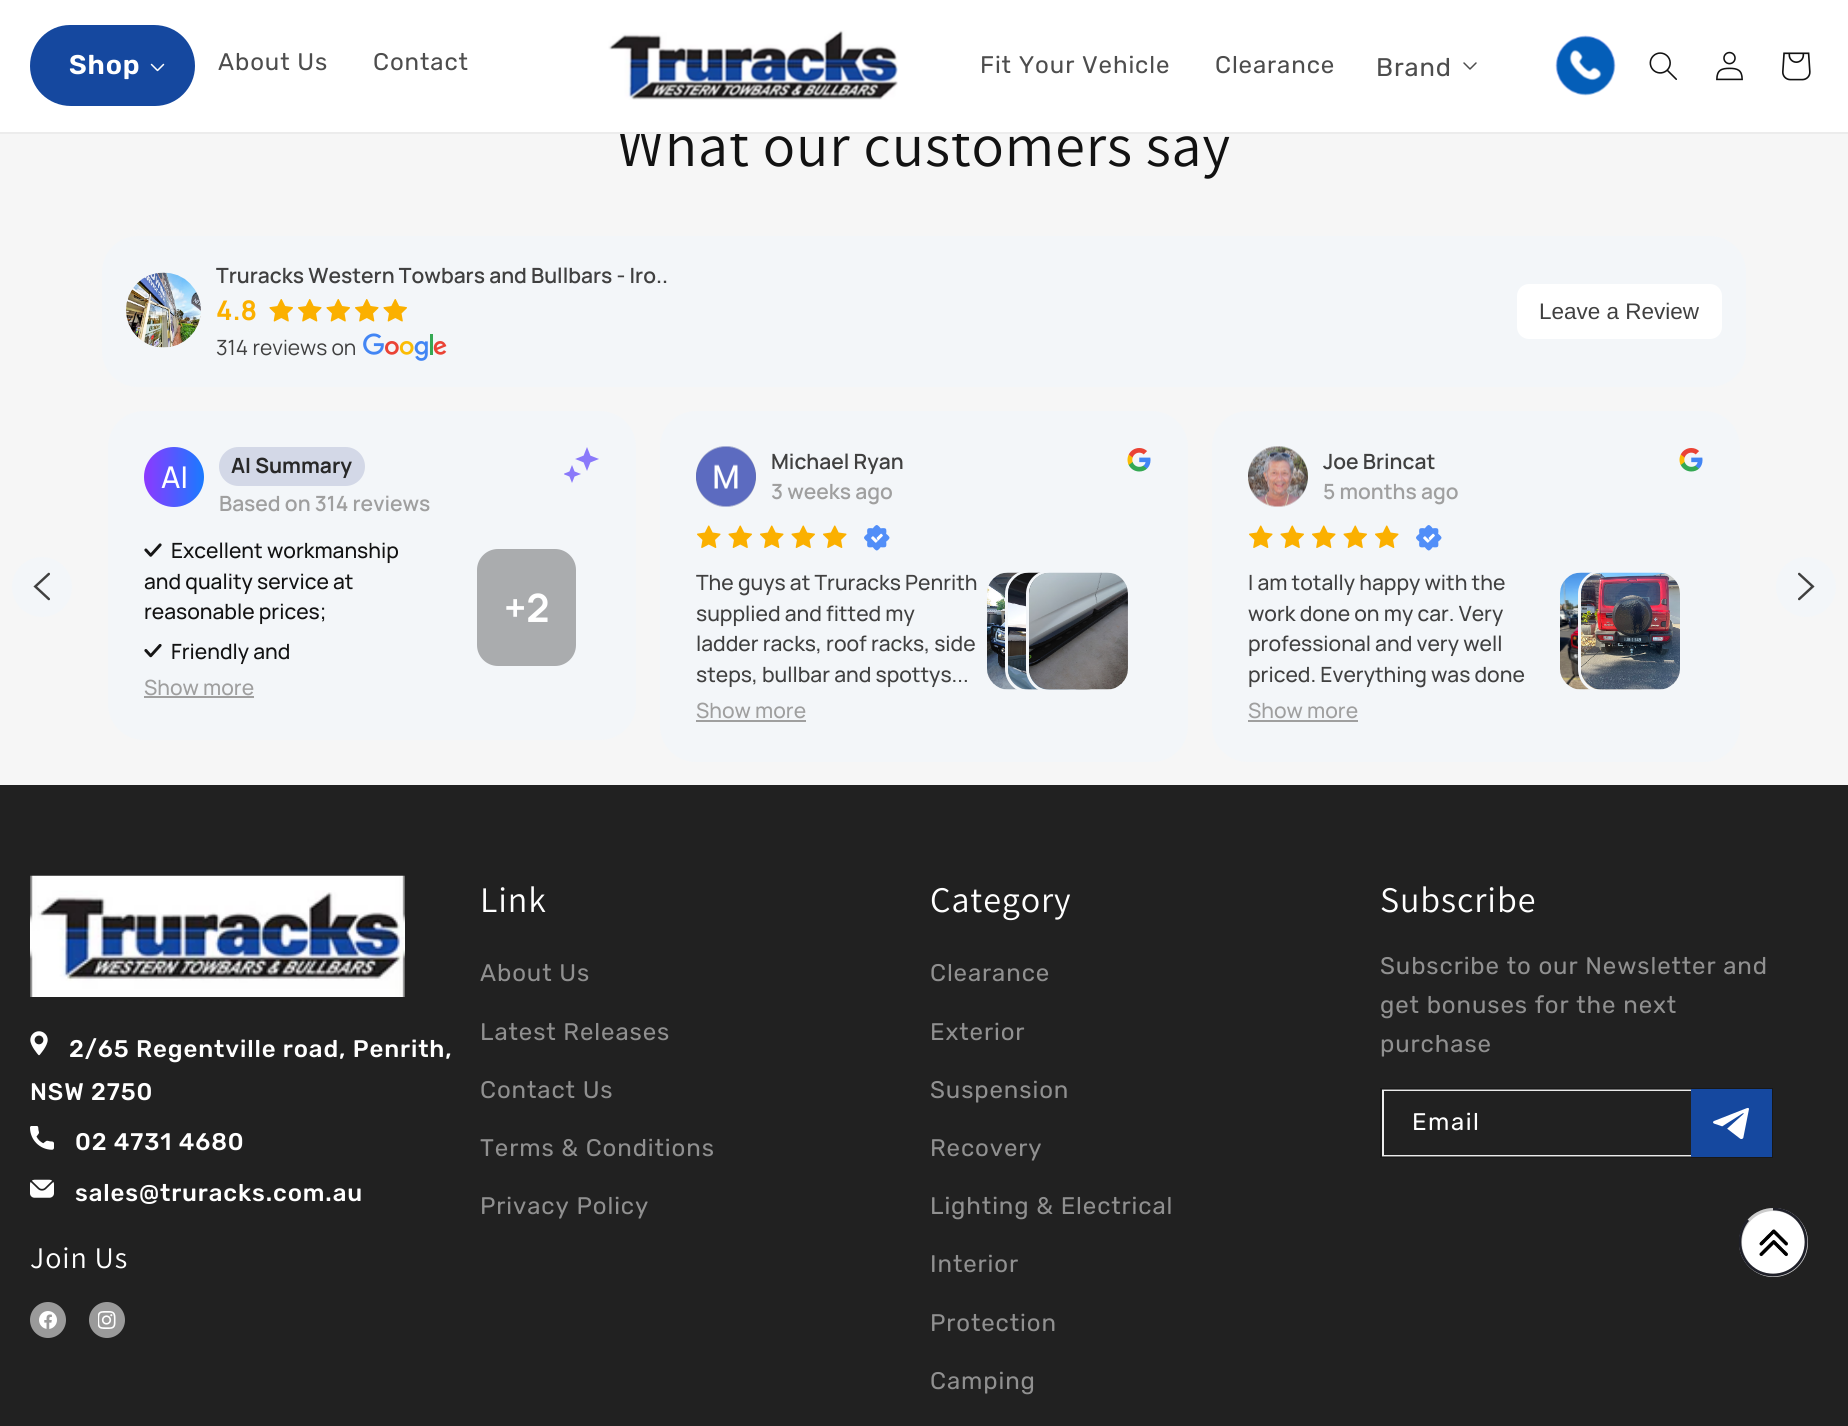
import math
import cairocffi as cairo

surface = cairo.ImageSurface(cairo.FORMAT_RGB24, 1848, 1426)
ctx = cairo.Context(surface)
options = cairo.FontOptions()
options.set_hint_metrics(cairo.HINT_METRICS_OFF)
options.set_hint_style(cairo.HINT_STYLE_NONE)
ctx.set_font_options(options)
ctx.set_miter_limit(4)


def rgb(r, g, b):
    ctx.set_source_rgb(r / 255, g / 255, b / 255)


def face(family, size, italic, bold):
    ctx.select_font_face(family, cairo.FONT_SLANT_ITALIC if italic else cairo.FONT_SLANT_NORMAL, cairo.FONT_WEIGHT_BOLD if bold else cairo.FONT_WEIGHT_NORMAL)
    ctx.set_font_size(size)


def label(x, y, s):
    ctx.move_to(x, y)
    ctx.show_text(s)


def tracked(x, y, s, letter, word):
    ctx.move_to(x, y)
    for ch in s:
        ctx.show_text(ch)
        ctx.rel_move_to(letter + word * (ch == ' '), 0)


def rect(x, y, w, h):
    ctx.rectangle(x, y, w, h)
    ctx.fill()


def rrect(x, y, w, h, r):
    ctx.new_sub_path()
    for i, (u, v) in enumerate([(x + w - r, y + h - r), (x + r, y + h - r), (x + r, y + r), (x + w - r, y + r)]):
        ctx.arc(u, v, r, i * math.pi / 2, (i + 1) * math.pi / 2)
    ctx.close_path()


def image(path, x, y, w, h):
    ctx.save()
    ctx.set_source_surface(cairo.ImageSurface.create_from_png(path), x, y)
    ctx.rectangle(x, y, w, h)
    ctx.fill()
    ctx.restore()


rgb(246, 246, 246)
ctx.paint()
face('Assistant', 60, 0, 0)
rgb(18, 18, 18)
tracked(617, 166, 'What our customers say', 0.9, 0)
rgb(255, 255, 255)
rect(0, 0, 1848, 132)
rgb(236, 236, 236)
rect(0, 132, 1848, 2)
rgb(21, 72, 159)
ctx.new_path()
ctx.move_to(70, 25)
ctx.line_to(154, 25)
ctx.curve_to(177, 25, 195, 43, 195, 66)
ctx.curve_to(195, 88, 177, 106, 155, 106)
ctx.line_to(71, 106)
ctx.curve_to(48, 106, 30, 88, 30, 66)
ctx.curve_to(30, 43, 48, 25, 70, 25)
ctx.close_path()
ctx.fill()
face('Rubik SemiBold', 27, 0, 0)
rgb(255, 255, 255)
tracked(69, 74, 'Shop', 0.9, 0)
image('image0.png', 150, 63, 15, 9)
face('Rubik', 24, 0, 0)
rgb(77, 77, 77)
tracked(218, 70, 'About Us', 0.9, 0)
tracked(373, 70, 'Contact', 0.9, 0)
image('image1.png', 608, 30, 290, 70)
tracked(980, 73, 'Fit Your Vehicle', 0.9, 0)
tracked(1215, 73, 'Clearance', 0.9, 0)
face('Rubik', 25.5, 0, 0)
tracked(1376, 76, 'Brand', 0.9, 0)
image('image2.png', 1463, 62, 14, 8)
image('image3.png', 1555, 35, 61, 61)
image('image4.png', 1649, 52, 28, 28)
image('image5.png', 1716, 51, 27, 30)
image('image6.png', 1782, 52, 29, 29)
rgb(243, 246, 249)
rrect(102, 236, 1644, 151, 36)
ctx.fill()
image('image7.png', 126, 272, 75, 76)
face('Manrope SemiBold', 21, 0, 0)
rgb(64, 64, 64)
label(216, 283, 'Truracks Western Towbars and Bullbars - Iro..')
face('Manrope', 27, 0, 1)
rgb(251, 176, 0)
label(216, 320, '4.8')
image('image8.png', 269, 299, 24, 23)
image('image9.png', 298, 299, 24, 23)
image('image8.png', 326, 299, 24, 23)
image('image9.png', 355, 299, 24, 23)
image('image8.png', 383, 299, 24, 23)
face('Manrope', 21, 0, 0)
rgb(64, 64, 64)
label(216, 355, '314 reviews on')
image('image10.png', 363, 333, 84, 28)
rgb(255, 255, 255)
rrect(1517, 284, 205, 55, 12)
ctx.fill()
face('Liberation Sans', 22.5, 0, 0)
rgb(64, 64, 64)
label(1539, 319, 'Leave a Review')
rgb(243, 246, 249)
ctx.new_path()
ctx.arc(42, 587, 30, 0, 2 * math.pi)
ctx.fill()
image('image11.png', 33, 572, 17, 29)
rrect(108, 411, 528, 329, 36)
ctx.fill()
gradient = cairo.LinearGradient(144, 477, 204, 477)
gradient.add_color_stop_rgba(0, 0.553, 0.22, 1, 1)
gradient.add_color_stop_rgba(1, 0.098, 0.482, 1, 1)
ctx.set_source(gradient)
ctx.arc(174, 477, 30, 0, 2 * math.pi)
ctx.fill()
face('Manrope Medium', 30, 0, 0)
rgb(255, 255, 255)
label(161, 488, 'AI')
rgb(211, 216, 231)
rrect(219, 447, 146, 39, 19.5)
ctx.fill()
face('Manrope', 21, 0, 1)
rgb(40, 40, 40)
label(231, 473, 'AI Summary')
face('Manrope SemiBold', 21, 0, 0)
rgb(159, 159, 159)
label(219, 511, 'Based on 314 reviews')
image('image12.png', 564, 447, 35, 36)
image('image13.png', 144, 543, 18, 14)
face('Manrope Medium', 21, 0, 0)
rgb(18, 18, 18)
label(171, 558, 'Excellent workmanship')
label(144, 589, 'and quality service at')
label(144, 619, 'reasonable prices;')
image('image14.png', 144, 644, 18, 14)
label(171, 659, 'Friendly and')
rgb(170, 172, 174)
rrect(477, 549, 99, 117, 21)
ctx.fill()
face('Manrope', 39, 0, 1)
rgb(255, 255, 255)
label(504, 622, '+2')
face('Manrope Medium', 21, 0, 0)
rgb(159, 159, 159)
label(144, 695, 'Show more')
rect(144, 696, 110, 2)
rgb(243, 246, 249)
rrect(660, 411, 528, 351, 36)
ctx.fill()
image('image15.png', 696, 446, 60, 61)
face('Manrope SemiBold', 21, 0, 0)
rgb(64, 64, 64)
label(771, 469, 'Michael Ryan')
rgb(159, 159, 159)
label(771, 499, '3 weeks ago')
image('image16.png', 1127, 448, 24, 24)
image('image17.png', 697, 525, 24, 23)
image('image18.png', 728, 525, 24, 23)
image('image17.png', 760, 525, 24, 23)
image('image18.png', 791, 525, 24, 23)
image('image17.png', 823, 525, 24, 23)
image('image19.png', 864, 525, 26, 26)
face('Manrope Medium', 21, 0, 0)
rgb(64, 64, 64)
label(696, 590, 'The guys at Truracks Penrith')
label(696, 621, 'supplied and fitted my')
label(696, 651, 'ladder racks, roof racks, side')
label(696, 682, 'steps, bullbar and spottys...')
image('image22.png', 987, 572, 83, 118)
rrect(1006.5, 571.5, 102, 120, 22.5)
rgb(243, 246, 249)
ctx.set_line_width(3)
ctx.stroke()
image('image20.png', 1008, 572, 83, 118)
rrect(1027.5, 571.5, 102, 120, 22.5)
ctx.stroke()
image('image21.png', 1029, 572, 99, 118)
rgb(159, 159, 159)
label(696, 718, 'Show more')
rect(696, 720, 110, 2)
rgb(243, 246, 249)
rrect(1212, 411, 528, 351, 36)
ctx.fill()
image('image23.png', 1248, 446, 60, 61)
face('Manrope SemiBold', 21, 0, 0)
rgb(64, 64, 64)
label(1323, 469, 'Joe Brincat')
rgb(159, 159, 159)
label(1323, 499, '5 months ago')
image('image16.png', 1679, 448, 24, 24)
image('image17.png', 1249, 525, 24, 23)
image('image18.png', 1280, 525, 24, 23)
image('image17.png', 1312, 525, 24, 23)
image('image18.png', 1343, 525, 24, 23)
image('image17.png', 1375, 525, 24, 23)
image('image19.png', 1416, 525, 26, 26)
face('Manrope Medium', 21, 0, 0)
rgb(64, 64, 64)
label(1248, 590, 'I am totally happy with the')
label(1248, 621, 'work done on my car. Very')
label(1248, 651, 'professional and very well')
label(1248, 682, 'priced. Everything was done')
image('image25.png', 1560, 572, 83, 118)
rrect(1579.5, 571.5, 102, 120, 22.5)
rgb(243, 246, 249)
ctx.stroke()
image('image24.png', 1581, 572, 99, 118)
rgb(159, 159, 159)
label(1248, 718, 'Show more')
rect(1248, 720, 110, 2)
rgb(243, 246, 249)
ctx.new_path()
ctx.arc(1806, 587, 30, 0, 2 * math.pi)
ctx.fill()
image('image26.png', 1798, 572, 17, 29)
rgb(33, 33, 33)
rect(0, 785, 1848, 641)
image('image27.png', 30, 875, 375, 122)
image('image28.png', 30, 1031, 18, 25)
face('Rubik Medium', 24, 0, 0)
rgb(255, 255, 255)
tracked(69, 1057, '2/65 Regentville road, Penrith,', 0.9, 0)
tracked(30, 1100, 'NSW 2750', 0.9, 0)
image('image29.png', 30, 1126, 24, 24)
tracked(75, 1150, '02 4731 4680', 0.9, 0)
image('image30.png', 30, 1179, 24, 19)
tracked(75, 1201, 'sales@truracks.com.au', 0.9, 0)
face('Assistant', 30, 0, 0)
tracked(30, 1268, 'Join Us', 0.9, 0)
rgb(154, 154, 154)
ctx.new_path()
ctx.arc(48, 1320, 18, 0, 2 * math.pi)
ctx.fill()
image('image31.png', 39, 1311, 18, 18)
ctx.arc(107, 1320, 18, 0, 2 * math.pi)
ctx.fill()
image('image32.png', 98, 1311, 18, 18)
face('Assistant', 36, 0, 0)
rgb(255, 255, 255)
tracked(480, 912, 'Link', 0.9, 0)
face('Rubik', 24, 0, 0)
rgb(144, 144, 144)
tracked(480, 981, 'About Us', 0.9, 0)
tracked(480, 1040, 'Latest Releases', 0.9, 0)
tracked(480, 1098, 'Contact Us', 0.9, 0)
tracked(480, 1156, 'Terms & Conditions', 0.9, 0)
tracked(480, 1214, 'Privacy Policy', 0.9, 0)
face('Assistant', 36, 0, 0)
rgb(255, 255, 255)
tracked(930, 912, 'Category', 0.9, 0)
face('Rubik', 24, 0, 0)
rgb(144, 144, 144)
tracked(930, 981, 'Clearance', 0.9, 0)
tracked(930, 1040, 'Exterior', 0.9, 0)
tracked(930, 1098, 'Suspension', 0.9, 0)
tracked(930, 1156, 'Recovery', 0.9, 0)
tracked(930, 1214, 'Lighting & Electrical', 0.9, 0)
tracked(930, 1272, 'Interior', 0.9, 0)
tracked(930, 1331, 'Protection', 0.9, 0)
tracked(930, 1389, 'Camping', 0.9, 0)
face('Assistant', 36, 0, 0)
rgb(255, 255, 255)
tracked(1380, 912, 'Subscribe', 0.9, 0)
face('Rubik', 24, 0, 0)
rgb(144, 144, 144)
tracked(1380, 974, 'Subscribe to our Newsletter and', 0.9, 0)
tracked(1380, 1013, 'get bonuses for the next', 0.9, 0)
tracked(1380, 1052, 'purchase', 0.9, 0)
rgb(235, 235, 235)
rect(1382, 1089, 309, 2)
rect(1382, 1155, 309, 2)
rect(1382, 1089, 2, 68)
ctx.rectangle(1381, 1089, 391, 68)
ctx.set_source_rgba(0.071, 0.071, 0.071, 0.55)
ctx.set_line_width(2)
ctx.stroke()
rgb(21, 72, 159)
rect(1691, 1089, 81, 68)
image('image33.png', 1713, 1107, 36, 32)
rgb(255, 255, 255)
tracked(1412, 1130, 'Email', 1.5, 0)
ctx.new_path()
ctx.arc(1773.5, 1242.5, 34.5, 0, 2 * math.pi)
ctx.fill()
ctx.arc(1773.5, 1242.5, 33, 0, 2 * math.pi)
ctx.set_source_rgba(0, 0, 0, 0.2)
ctx.set_line_width(3)
ctx.stroke()
image('image34.png', 1759, 1229, 29, 28)
ctx.save()
ctx.rectangle(1739, 1208, 69, 69)
ctx.clip()
ctx.new_path()
ctx.move_to(1773, 1209)
ctx.curve_to(1791.5, 1209, 1806, 1223.5, 1806, 1242)
ctx.curve_to(1806, 1260.5, 1791.5, 1275, 1773, 1275)
ctx.curve_to(1754.5, 1275, 1740, 1260.5, 1740, 1242)
ctx.curve_to(1740, 1233.5, 1743, 1226, 1748, 1220)
rgb(31, 32, 41)
ctx.set_line_width(2.7)
ctx.stroke()
ctx.restore()
surface.write_to_png('render.png')
